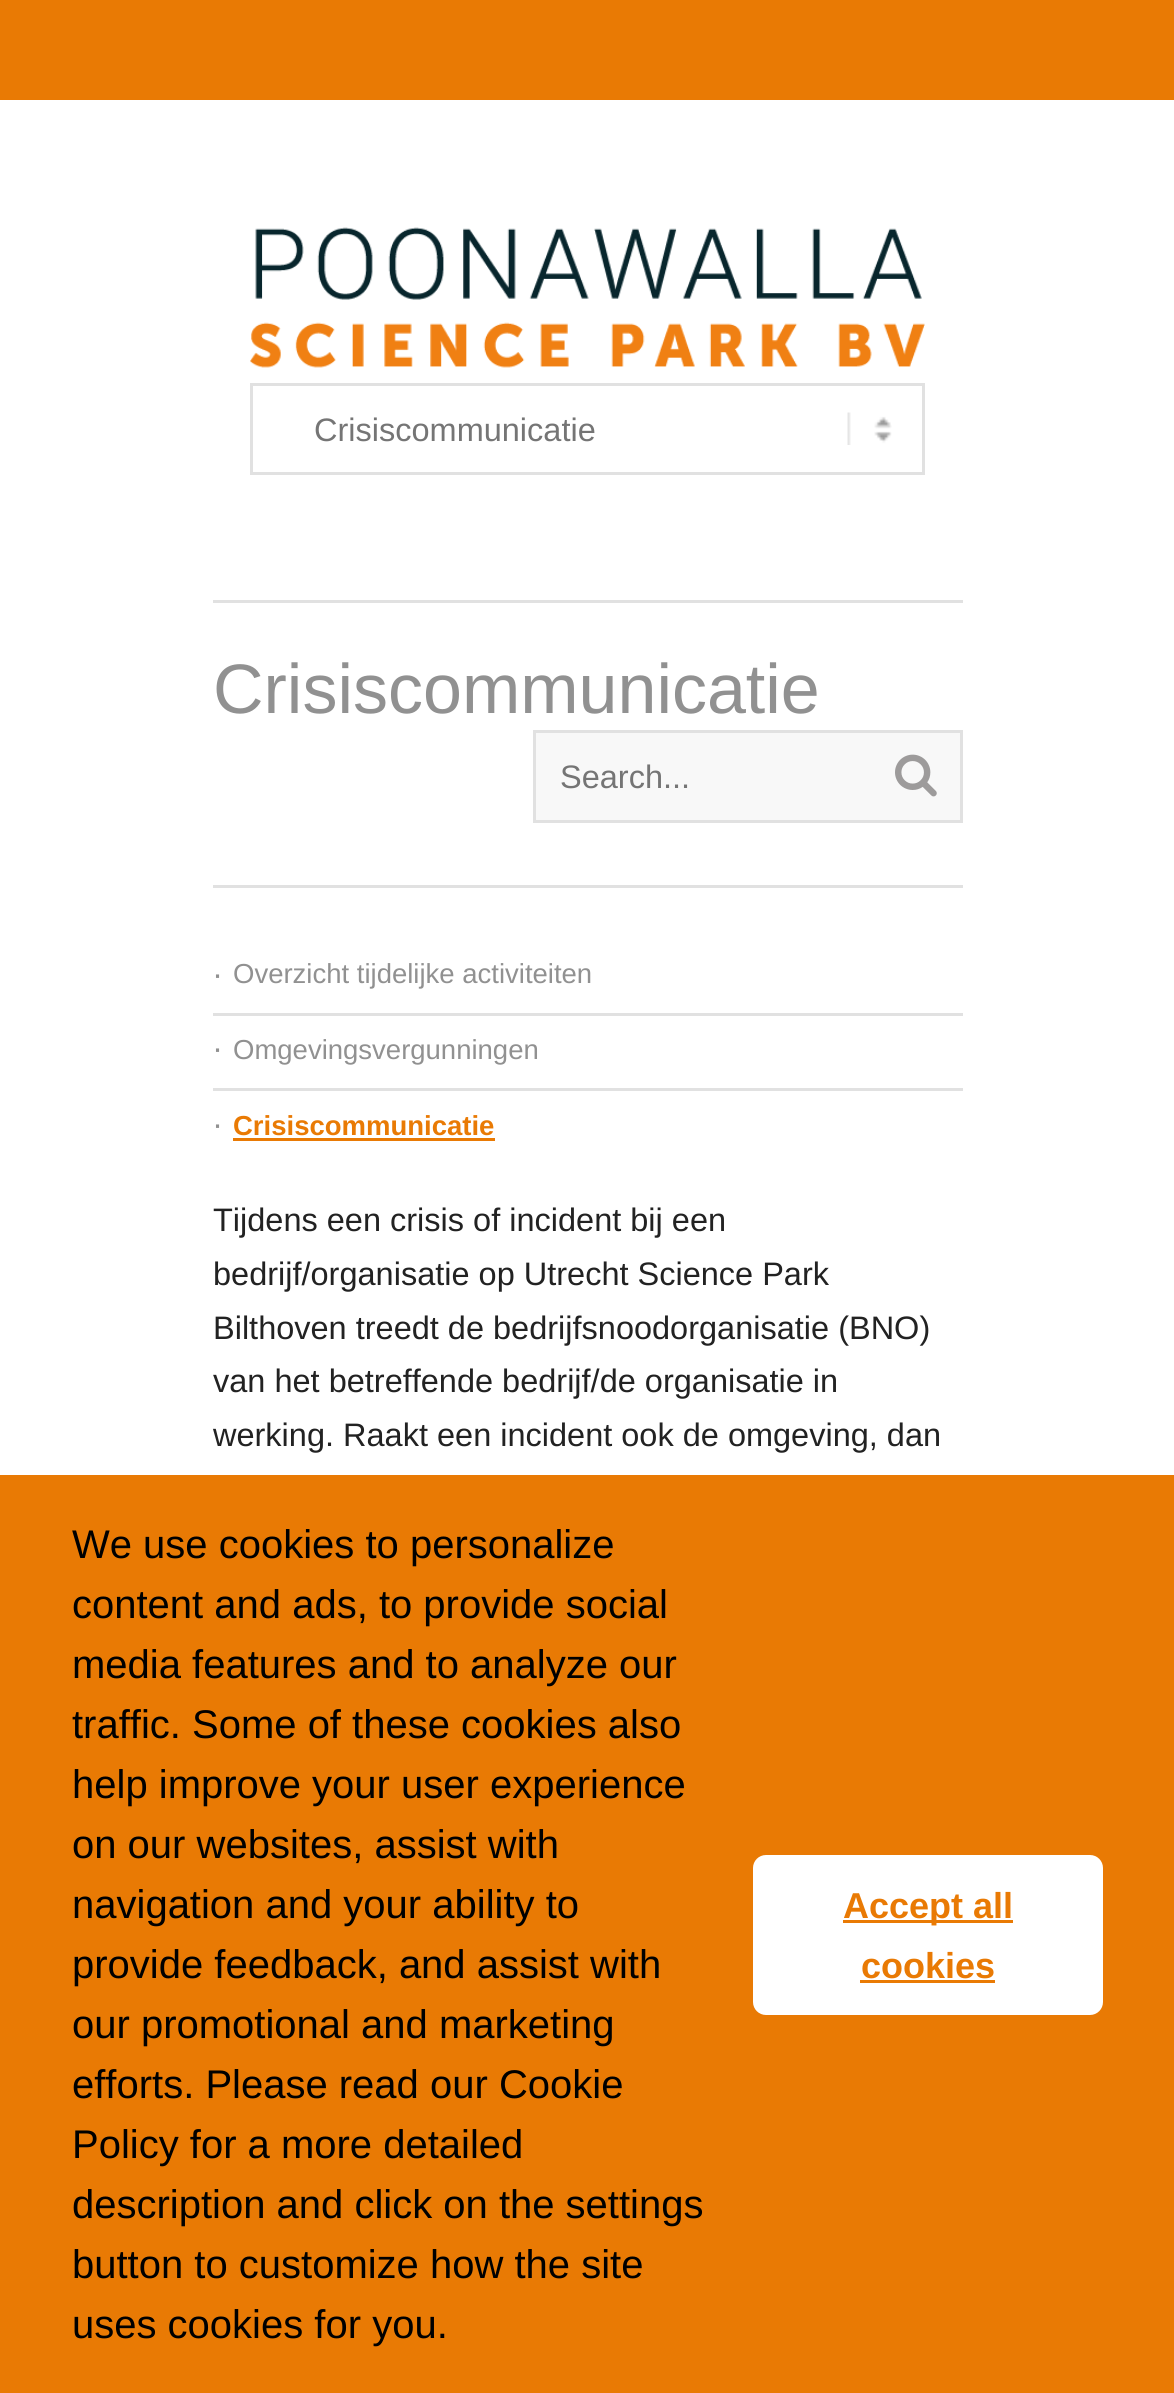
import math
import cairocffi as cairo

surface = cairo.ImageSurface(cairo.FORMAT_RGB24, 1174, 2393)
ctx = cairo.Context(surface)
options = cairo.FontOptions()
options.set_hint_metrics(cairo.HINT_METRICS_OFF)
options.set_hint_style(cairo.HINT_STYLE_NONE)
ctx.set_font_options(options)
ctx.set_miter_limit(4)


def rgb(r, g, b):
    ctx.set_source_rgb(r / 255, g / 255, b / 255)


def face(family, size, italic, bold):
    ctx.select_font_face(family, cairo.FONT_SLANT_ITALIC if italic else cairo.FONT_SLANT_NORMAL, cairo.FONT_WEIGHT_BOLD if bold else cairo.FONT_WEIGHT_NORMAL)
    ctx.set_font_size(size)


def label(x, y, s):
    ctx.move_to(x, y)
    ctx.show_text(s)


def rect(x, y, w, h):
    ctx.rectangle(x, y, w, h)
    ctx.fill()


def rrect(x, y, w, h, r):
    ctx.new_sub_path()
    for i, (u, v) in enumerate([(x + w - r, y + h - r), (x + r, y + h - r), (x + r, y + r), (x + w - r, y + r)]):
        ctx.arc(u, v, r, i * math.pi / 2, (i + 1) * math.pi / 2)
    ctx.close_path()


def image(path, x, y, w, h):
    ctx.save()
    ctx.set_source_surface(cairo.ImageSurface.create_from_png(path), x, y)
    ctx.rectangle(x, y, w, h)
    ctx.fill()
    ctx.restore()


rgb(255, 255, 255)
ctx.paint()
rgb(233, 122, 4)
rect(0, 0, 1174, 100)
rgb(225, 225, 225)
rect(213, 600, 750, 3)
image('image0.png', 250, 227, 675, 141)
image('image1.png', 847, 412, 45, 33)
ctx.rectangle(251.5, 384.5, 672, 89)
ctx.set_line_width(3)
ctx.stroke()
face('Liberation Sans', 32.5, 0, 0)
rgb(117, 117, 117)
label(314, 441, 'Crisiscommunicatie')
rgb(225, 225, 225)
rect(213, 885, 750, 3)
face('Liberation Sans', 70, 0, 0)
rgb(145, 145, 145)
label(213, 713, 'Crisiscommunicatie')
rgb(248, 248, 248)
ctx.rectangle(534.5, 731.5, 427, 90)
ctx.fill_preserve()
rgb(225, 225, 225)
ctx.stroke()
face('Liberation Sans', 32.5, 0, 0)
rgb(117, 117, 117)
label(560, 788, 'Search...')
image('image2.png', 895, 754, 42, 43)
rgb(145, 145, 145)
label(213, 985, '∙')
face('Liberation Sans', 27.5, 0, 0)
label(233, 983, 'Overzicht tijdelijke activiteiten')
face('Liberation Sans', 32.5, 0, 0)
label(213, 1059, '∙')
rgb(225, 225, 225)
rect(213, 1013, 750, 3)
face('Liberation Sans', 27.5, 0, 0)
rgb(145, 145, 145)
label(233, 1059, 'Omgevingsvergunningen')
face('Liberation Sans', 32.5, 0, 0)
label(213, 1135, '∙')
rgb(225, 225, 225)
rect(213, 1088, 750, 3)
face('Liberation Sans', 27.5, 0, 1)
rgb(233, 122, 4)
label(233, 1135, 'Crisiscommunicatie')
rect(233, 1138, 262, 3)
face('Liberation Sans', 32.5, 0, 0)
rgb(34, 34, 34)
label(213, 1231, 'Tijdens een crisis of incident bij een')
label(213, 1285, 'bedrijf/organisatie op Utrecht Science Park')
label(213, 1339, 'Bilthoven treedt de bedrijfsnoodorganisatie (BNO)')
label(213, 1392, 'van het betreffende bedrijf/de organisatie in')
label(213, 1446, 'werking. Raakt een incident ook de omgeving, dan')
rgb(233, 122, 4)
rect(0, 1475, 1174, 918)
face('Liberation Sans', 40, 0, 0)
rgb(0, 0, 0)
label(72, 1558, 'We use cookies to personalize')
label(72, 1618, 'content and ads, to provide social')
label(72, 1678, 'media features and to analyze our')
label(72, 1738, 'traffic. Some of these cookies also')
label(72, 1798, 'help improve your user experience')
label(72, 1858, 'on our websites, assist with')
label(72, 1918, 'navigation and your ability to')
label(72, 1978, 'provide feedback, and assist with')
label(72, 2038, 'our promotional and marketing')
label(72, 2098, 'efforts. Please read our Cookie')
label(72, 2158, 'Policy for a more detailed')
label(72, 2218, 'description and click on the settings')
label(72, 2278, 'button to customize how the site')
label(72, 2338, 'uses cookies for you.')
rgb(255, 255, 255)
rrect(753, 1855, 350, 160, 13)
ctx.fill()
rgb(233, 122, 4)
rect(843, 1920, 170, 3)
face('Liberation Sans', 36, 0, 1)
label(843, 1918, 'Accept all')
label(861, 1978, 'cookies')
rect(860, 1980, 135, 3)
surface.write_to_png('render.png')
